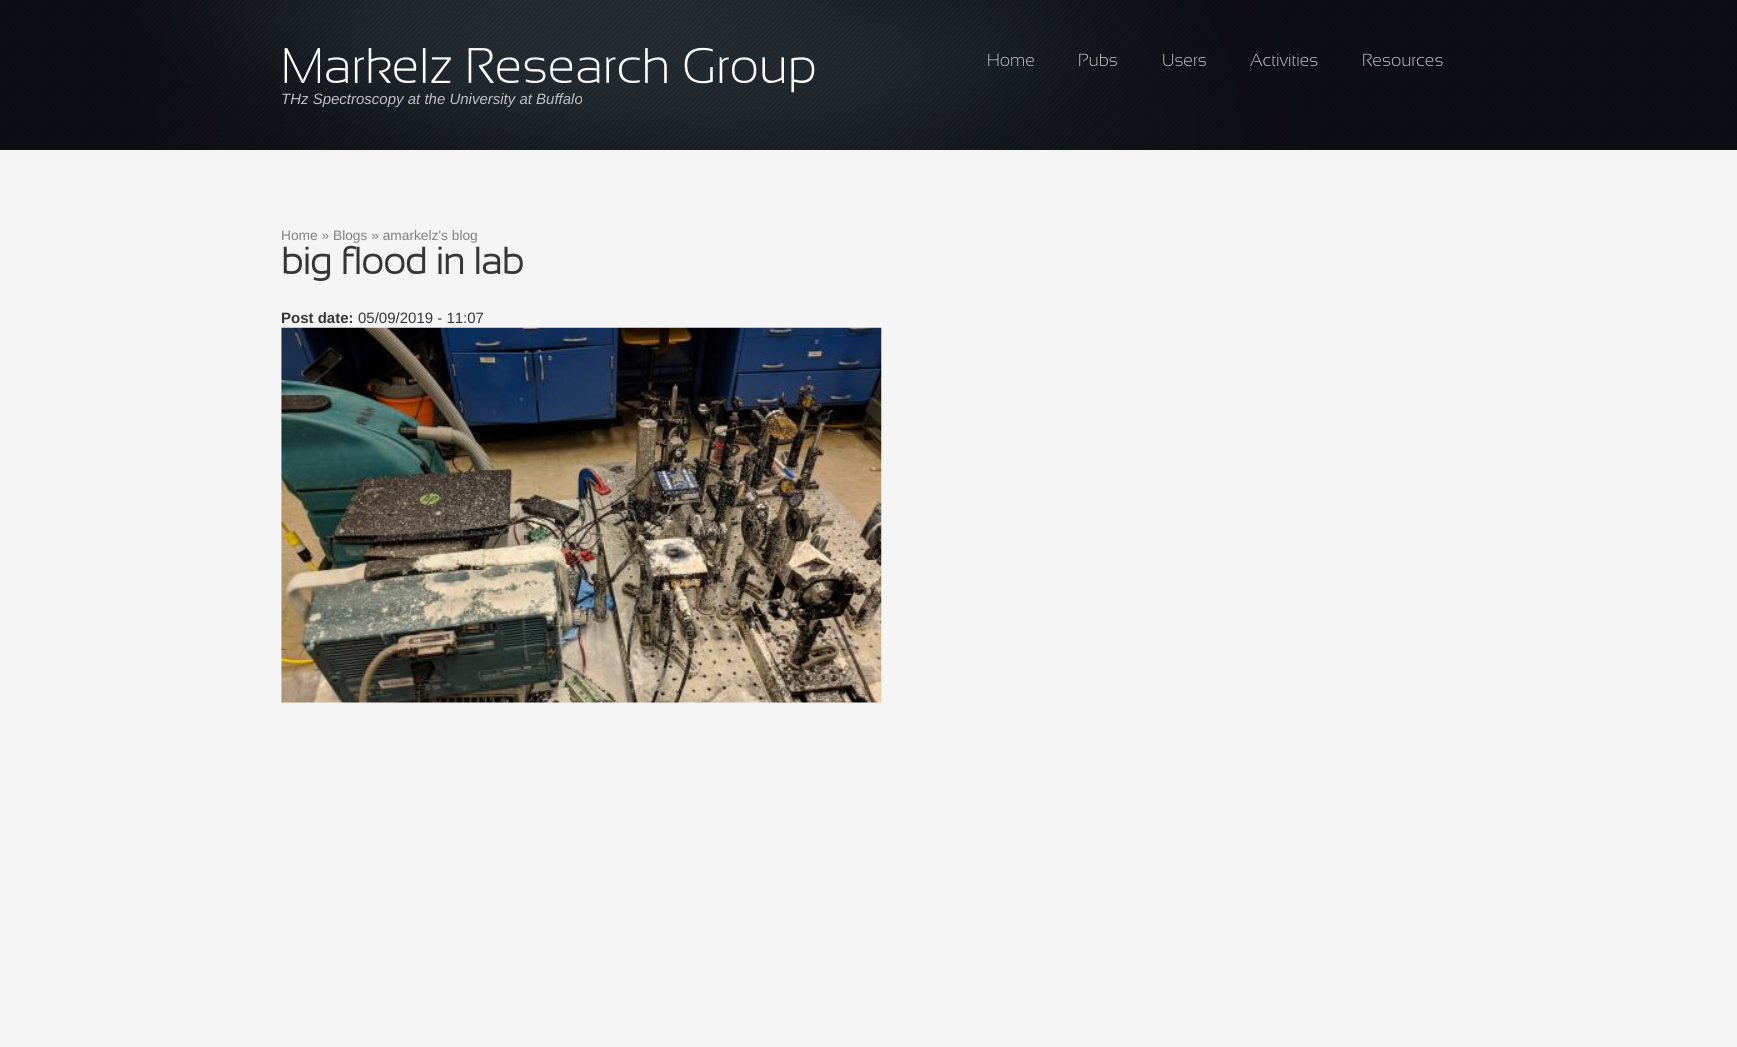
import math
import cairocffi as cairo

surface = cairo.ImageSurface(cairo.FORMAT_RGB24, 1737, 1047)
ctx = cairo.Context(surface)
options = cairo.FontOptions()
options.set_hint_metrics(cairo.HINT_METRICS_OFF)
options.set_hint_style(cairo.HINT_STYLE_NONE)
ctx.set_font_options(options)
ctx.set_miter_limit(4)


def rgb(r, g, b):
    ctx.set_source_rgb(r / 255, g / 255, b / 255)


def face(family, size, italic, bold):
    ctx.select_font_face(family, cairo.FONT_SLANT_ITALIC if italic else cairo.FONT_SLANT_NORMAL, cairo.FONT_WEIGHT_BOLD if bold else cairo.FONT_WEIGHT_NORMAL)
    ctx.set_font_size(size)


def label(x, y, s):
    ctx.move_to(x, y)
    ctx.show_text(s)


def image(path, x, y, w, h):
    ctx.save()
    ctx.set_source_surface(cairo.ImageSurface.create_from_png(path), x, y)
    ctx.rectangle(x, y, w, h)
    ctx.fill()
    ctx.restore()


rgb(245, 245, 245)
ctx.paint()
image('image0.png', 0, 0, 1737, 150)
face('Sansation Light', 50, 0, 0)
rgb(255, 255, 255)
label(281, 83, 'Markelz Research Group')
face('Liberation Sans', 15, 1, 0)
rgb(192, 192, 192)
label(281, 104, 'THz Spectroscopy at the University at Buffalo')
face('Sansation Light', 17.5, 0, 0)
label(987, 66, 'Home')
label(1078, 66, 'Pubs')
label(1162, 66, 'Users')
label(1250, 66, 'Activities')
label(1362, 66, 'Resources')
face('Liberation Sans', 13.75, 0, 0)
rgb(129, 129, 129)
label(281, 240, 'Home » Blogs » amarkelz\'s blog')
face('Sansation', 37.5, 0, 1)
rgb(54, 54, 54)
label(281, 274, 'big flood in lab')
face('Liberation Sans', 15, 0, 1)
label(281, 323, 'Post date:')
face('Liberation Sans', 15, 0, 0)
label(358, 323, '05/09/2019 - 11:07')
image('image1.png', 281, 327, 601, 376)
surface.write_to_png('render.png')
